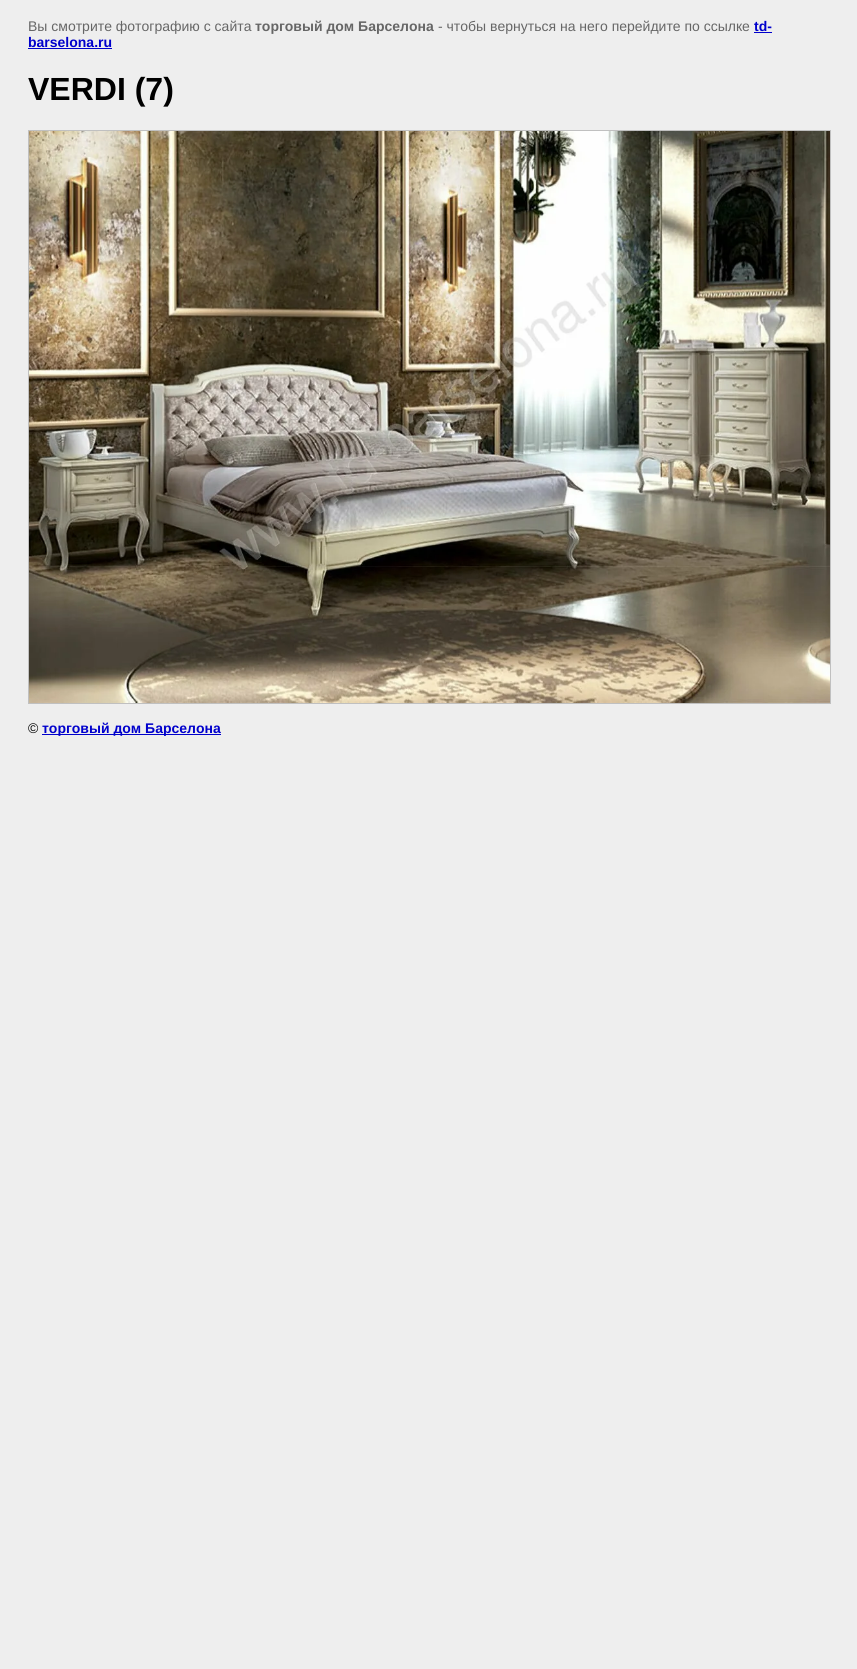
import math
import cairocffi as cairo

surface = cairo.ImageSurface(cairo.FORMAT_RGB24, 857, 1669)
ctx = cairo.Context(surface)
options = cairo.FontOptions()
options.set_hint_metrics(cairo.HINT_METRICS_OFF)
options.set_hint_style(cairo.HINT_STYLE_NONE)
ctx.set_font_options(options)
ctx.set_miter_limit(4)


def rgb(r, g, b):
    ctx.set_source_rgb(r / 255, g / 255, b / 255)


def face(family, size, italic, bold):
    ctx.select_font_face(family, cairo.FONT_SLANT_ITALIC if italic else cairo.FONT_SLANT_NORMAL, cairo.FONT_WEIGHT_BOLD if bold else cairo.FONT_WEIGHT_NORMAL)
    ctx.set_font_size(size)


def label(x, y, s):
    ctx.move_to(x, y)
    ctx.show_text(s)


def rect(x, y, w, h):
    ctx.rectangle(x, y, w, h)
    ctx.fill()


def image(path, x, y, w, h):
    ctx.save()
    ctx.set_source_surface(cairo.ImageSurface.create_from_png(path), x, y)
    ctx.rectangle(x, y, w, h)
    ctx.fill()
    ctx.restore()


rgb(238, 238, 238)
ctx.paint()
face('Liberation Sans', 14, 0, 0)
rgb(102, 102, 102)
label(28, 31, 'Вы смотрите фотографию с сайта')
face('Liberation Sans', 14, 0, 1)
label(255, 31, 'торговый дом Барселона')
face('Liberation Sans', 14, 0, 0)
label(438, 31, '- чтобы вернуться на него перейдите по ссылке')
face('Liberation Sans', 14, 0, 1)
rgb(0, 0, 204)
label(754, 31, 'td-')
rect(754, 32, 18, 1)
label(28, 47, 'barselona.ru')
rect(28, 48, 84, 1)
face('Liberation Sans', 32, 0, 1)
rgb(0, 0, 0)
label(28, 100, 'VERDI (7)')
ctx.rectangle(28.5, 130.5, 802, 573)
rgb(192, 192, 192)
ctx.set_line_width(1)
ctx.stroke()
image('image0.png', 29, 131, 801, 572)
face('Liberation Sans', 14, 0, 0)
rgb(0, 0, 0)
label(28, 733, '©')
rgb(0, 0, 204)
rect(42, 734, 179, 1)
face('Liberation Sans', 14, 0, 1)
label(42, 733, 'торговый дом Барселона')
surface.write_to_png('render.png')
